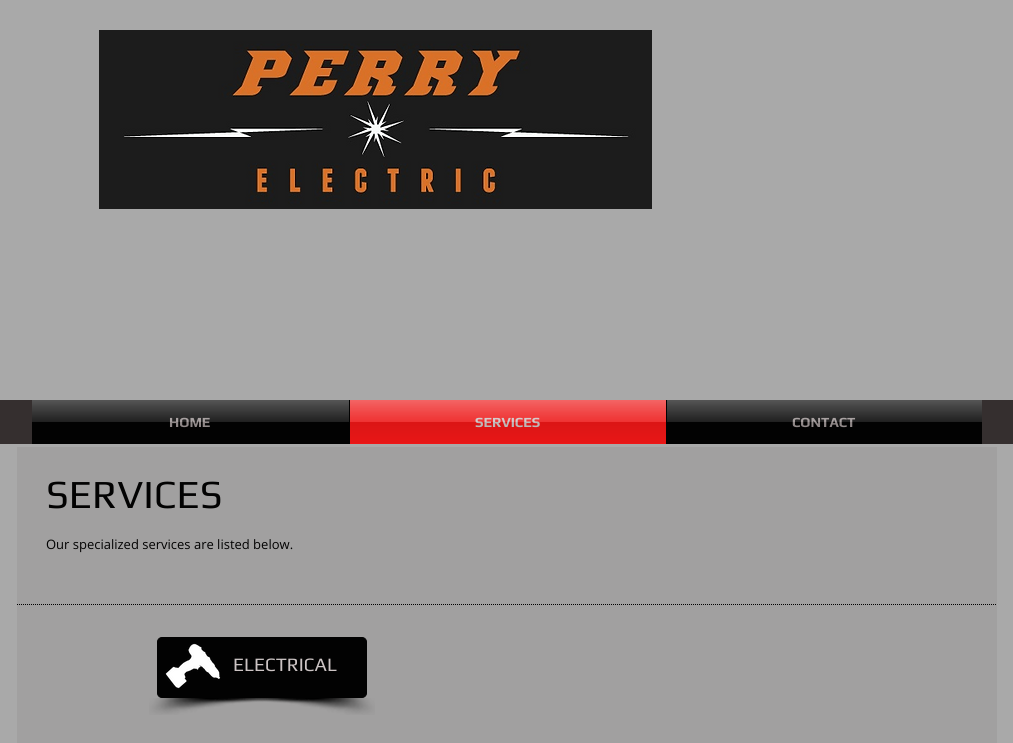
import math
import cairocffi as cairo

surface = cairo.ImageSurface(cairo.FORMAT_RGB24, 1013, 743)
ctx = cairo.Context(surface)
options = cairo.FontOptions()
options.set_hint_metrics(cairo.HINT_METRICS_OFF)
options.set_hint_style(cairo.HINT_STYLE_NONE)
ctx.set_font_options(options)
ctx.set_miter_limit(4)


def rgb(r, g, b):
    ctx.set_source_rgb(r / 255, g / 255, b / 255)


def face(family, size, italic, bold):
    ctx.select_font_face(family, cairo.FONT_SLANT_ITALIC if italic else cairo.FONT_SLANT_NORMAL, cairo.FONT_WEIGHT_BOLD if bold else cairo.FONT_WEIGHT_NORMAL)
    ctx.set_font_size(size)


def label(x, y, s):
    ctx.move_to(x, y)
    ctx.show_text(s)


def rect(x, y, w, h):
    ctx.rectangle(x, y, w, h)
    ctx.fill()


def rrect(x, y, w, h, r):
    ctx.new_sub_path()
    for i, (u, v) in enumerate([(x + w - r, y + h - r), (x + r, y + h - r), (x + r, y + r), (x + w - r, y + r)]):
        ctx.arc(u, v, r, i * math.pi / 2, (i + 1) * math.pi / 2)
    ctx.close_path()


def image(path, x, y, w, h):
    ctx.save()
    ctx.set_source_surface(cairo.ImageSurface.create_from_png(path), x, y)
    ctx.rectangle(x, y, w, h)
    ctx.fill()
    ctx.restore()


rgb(169, 169, 169)
ctx.paint()
image('image0.png', 99, 30, 553, 179)
rgb(53, 47, 47)
rect(0, 400, 1013, 44)
rgb(2, 2, 2)
rect(32, 400, 318, 44)
face('Play', 14, 0, 1)
rgb(154, 146, 146)
label(169, 427, 'HOME')
image('image1.png', 32, 400, 317, 27)
rgb(237, 23, 23)
rect(350, 400, 316, 44)
rgb(204, 196, 196)
label(475, 427, 'SERVICES')
image('image2.png', 350, 400, 316, 43)
rgb(2, 2, 2)
rect(666, 400, 316, 44)
rgb(154, 146, 146)
label(792, 427, 'CONTACT')
image('image3.png', 667, 400, 315, 27)
rgb(161, 160, 160)
rect(17, 447, 980, 296)
face('Play', 40, 0, 0)
rgb(2, 2, 2)
label(46, 508, 'SERVICES')
face('Open Sans', 13, 0, 0)
label(46, 549, 'Our specialized services are listed below.')
ctx.new_path()
ctx.move_to(17, 604.5)
ctx.line_to(997, 604.5)
ctx.set_line_width(1)
ctx.set_dash([1, 1])
ctx.stroke()
rrect(157.5, 637.5, 209, 60, 4.5)
ctx.fill_preserve()
ctx.set_dash([])
ctx.stroke()
image('image4.png', 165, 643, 56, 46)
face('Play', 19, 0, 0)
rgb(204, 196, 196)
label(233, 671, 'ELECTRICAL')
image('image5.png', 149, 698, 148, 17)
image('image6.png', 244, 698, 131, 17)
surface.write_to_png('render.png')
